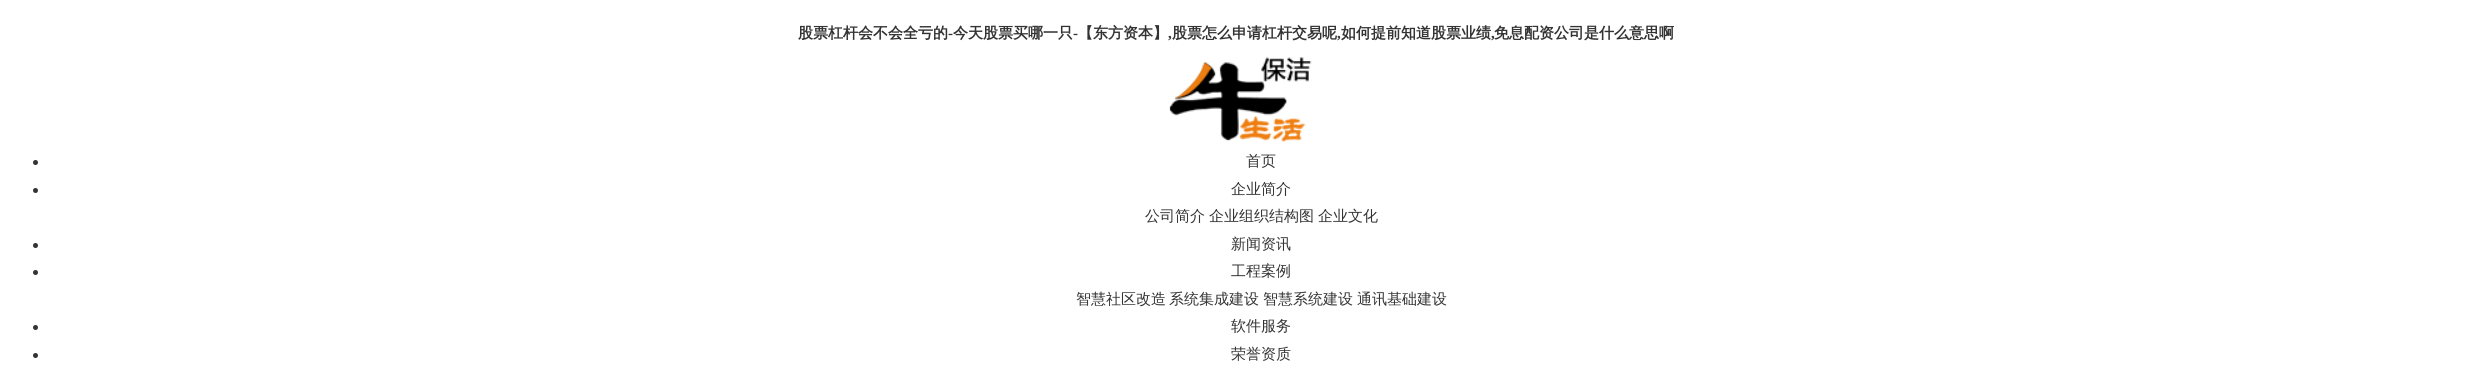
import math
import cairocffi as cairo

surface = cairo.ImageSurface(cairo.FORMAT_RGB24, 2472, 365)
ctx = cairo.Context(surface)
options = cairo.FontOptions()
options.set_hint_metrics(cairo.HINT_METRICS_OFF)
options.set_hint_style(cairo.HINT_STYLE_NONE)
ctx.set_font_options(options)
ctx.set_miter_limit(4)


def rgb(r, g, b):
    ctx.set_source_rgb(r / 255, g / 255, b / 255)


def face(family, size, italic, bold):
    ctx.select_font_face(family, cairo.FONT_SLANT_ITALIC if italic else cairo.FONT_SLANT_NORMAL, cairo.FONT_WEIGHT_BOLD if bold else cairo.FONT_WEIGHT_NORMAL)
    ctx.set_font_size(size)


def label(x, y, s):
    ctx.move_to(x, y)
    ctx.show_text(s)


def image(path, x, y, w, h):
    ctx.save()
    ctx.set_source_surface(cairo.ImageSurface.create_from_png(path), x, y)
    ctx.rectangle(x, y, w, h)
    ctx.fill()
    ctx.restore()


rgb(255, 255, 255)
ctx.paint()
face('WenQuanYi Zen Hei', 15, 0, 1)
rgb(51, 51, 51)
label(798, 38, '股票杠杆会不会全亏的')
face('Liberation Serif', 15, 0, 1)
label(948, 38, '-')
face('WenQuanYi Zen Hei', 15, 0, 1)
label(953, 38, '今天股票买哪一只')
face('Liberation Serif', 15, 0, 1)
label(1073, 38, '-')
face('WenQuanYi Zen Hei', 15, 0, 1)
label(1078, 38, '【东方资本】')
label(1172, 38, '股票怎么申请杠杆交易呢')
face('Liberation Serif', 15, 0, 1)
label(1337, 38, ',')
face('WenQuanYi Zen Hei', 15, 0, 1)
label(1341, 38, '如何提前知道股票业绩')
label(1494, 38, '免息配资公司是什么意思啊')
face('Liberation Serif', 15, 0, 1)
label(1168, 38, ',')
label(1491, 38, ',')
image('image0.png', 1169, 57, 143, 85)
ctx.arc(35.5, 162.5, 2.5, 0, 2 * math.pi)
ctx.fill()
face('WenQuanYi Zen Hei Medium', 15, 0, 0)
label(1246, 166, '首页')
ctx.new_path()
ctx.arc(35.5, 190.5, 2.5, 0, 2 * math.pi)
ctx.fill()
label(1231, 194, '企业简介')
label(1145, 221, '公司简介')
label(1209, 221, '企业组织结构图')
label(1318, 221, '企业文化')
ctx.new_path()
ctx.arc(35.5, 245.5, 2.5, 0, 2 * math.pi)
ctx.fill()
label(1231, 249, '新闻资讯')
ctx.new_path()
ctx.arc(35.5, 272.5, 2.5, 0, 2 * math.pi)
ctx.fill()
label(1231, 276, '工程案例')
label(1076, 304, '智慧社区改造')
label(1169, 304, '系统集成建设')
label(1263, 304, '智慧系统建设')
label(1357, 304, '通讯基础建设')
ctx.new_path()
ctx.arc(35.5, 327.5, 2.5, 0, 2 * math.pi)
ctx.fill()
label(1231, 331, '软件服务')
ctx.new_path()
ctx.arc(35.5, 355.5, 2.5, 0, 2 * math.pi)
ctx.fill()
label(1231, 359, '荣誉资质')
surface.write_to_png('render.png')
